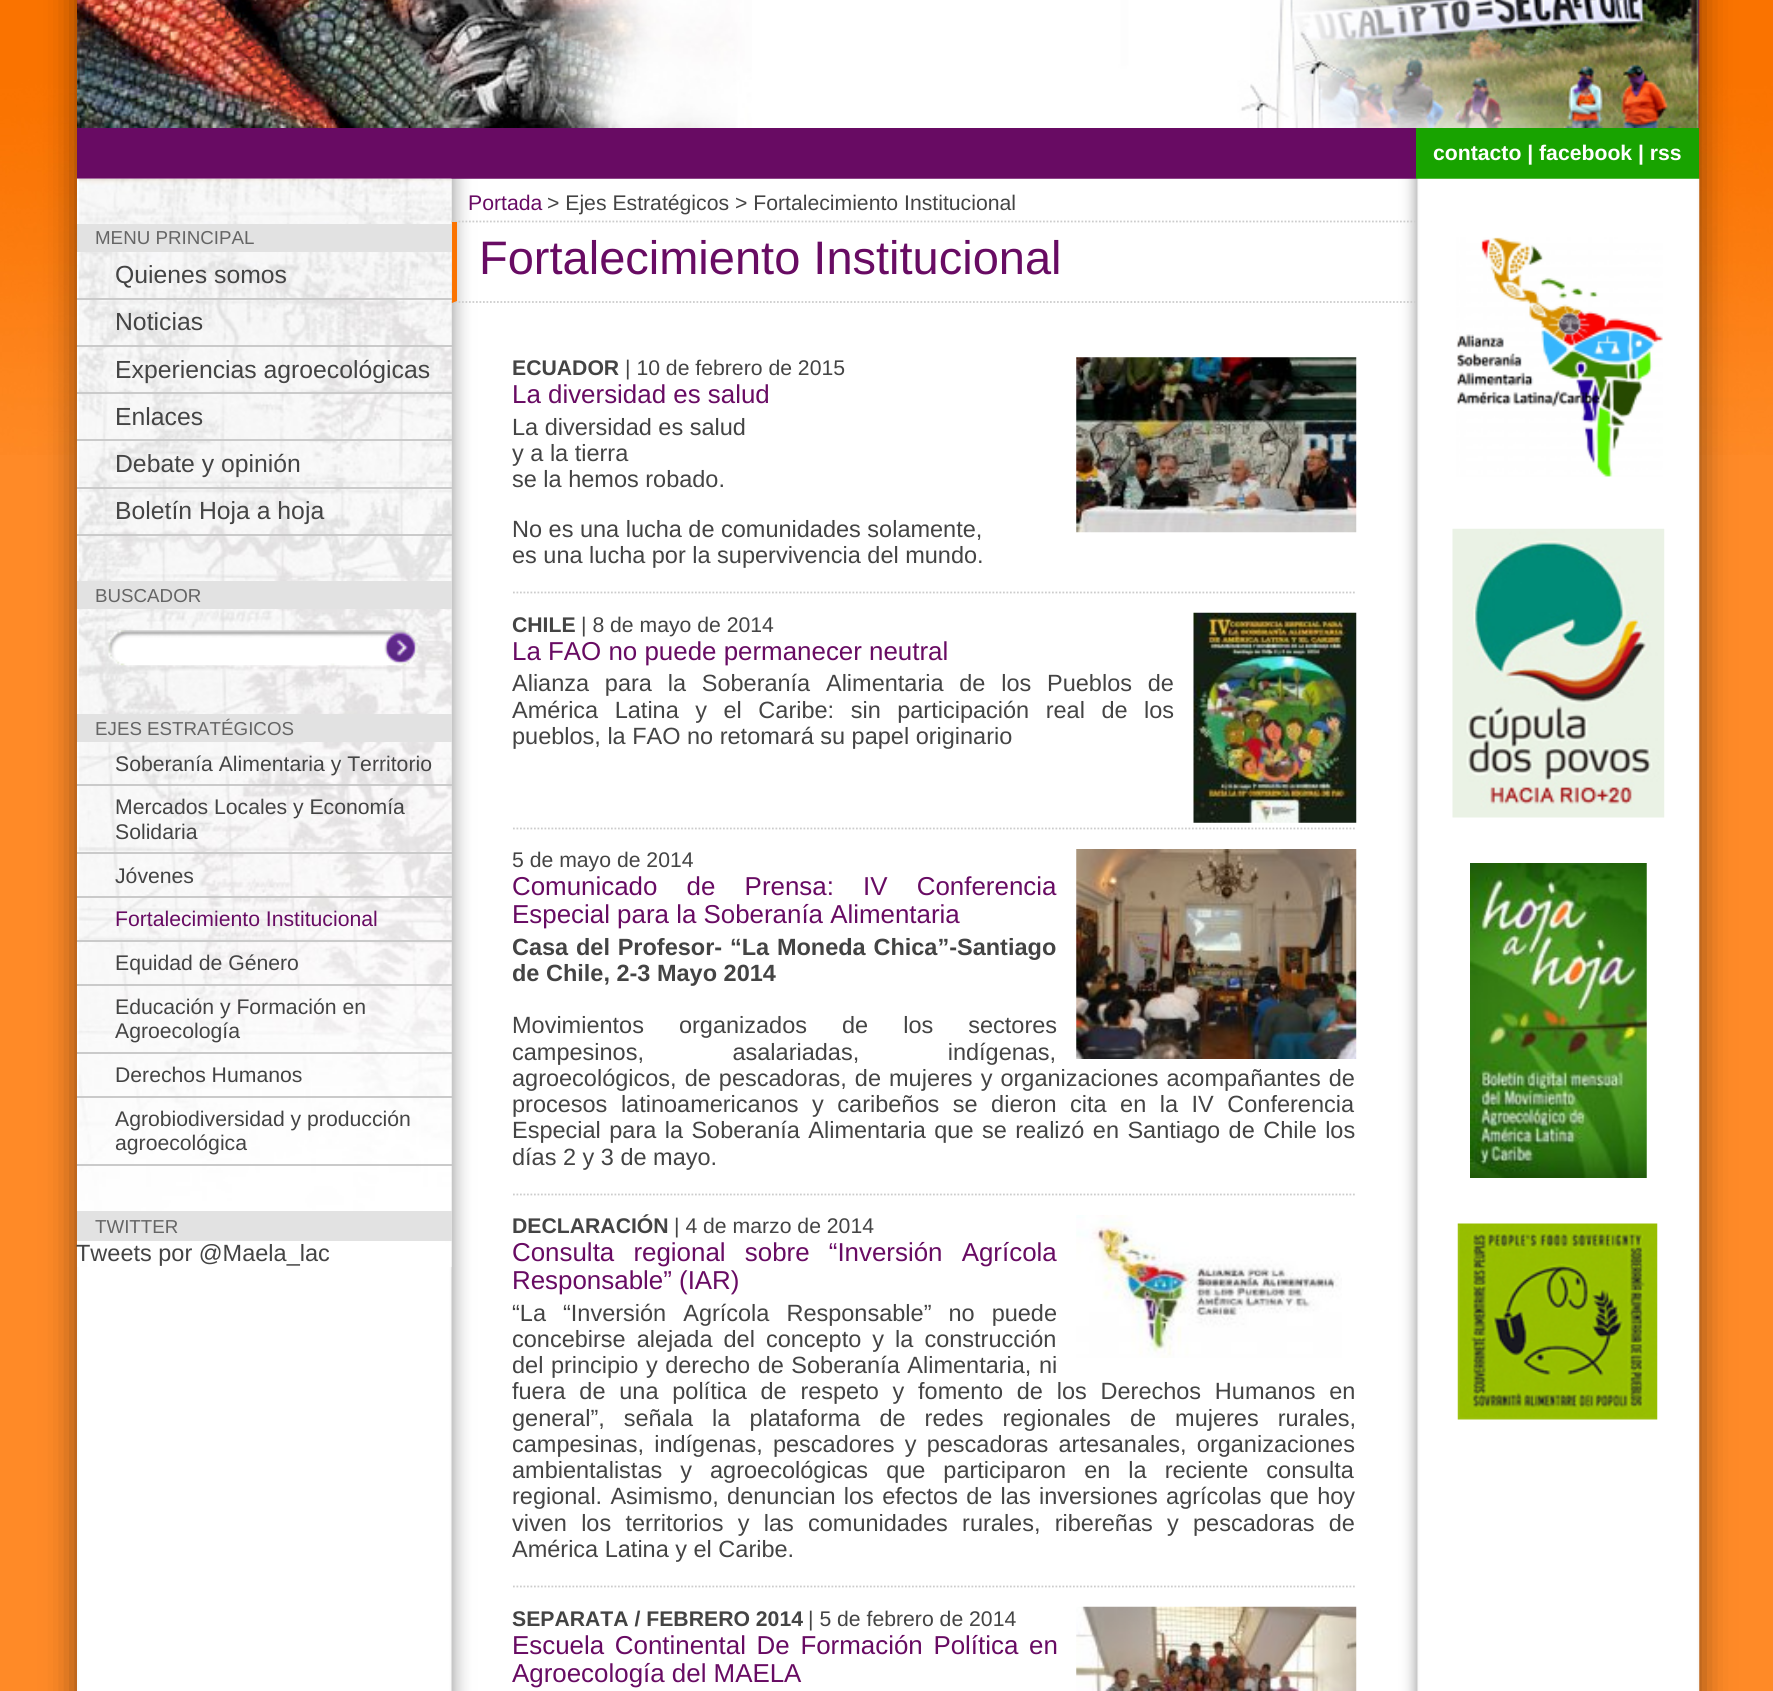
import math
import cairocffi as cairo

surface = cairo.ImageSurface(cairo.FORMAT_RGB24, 1773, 1691)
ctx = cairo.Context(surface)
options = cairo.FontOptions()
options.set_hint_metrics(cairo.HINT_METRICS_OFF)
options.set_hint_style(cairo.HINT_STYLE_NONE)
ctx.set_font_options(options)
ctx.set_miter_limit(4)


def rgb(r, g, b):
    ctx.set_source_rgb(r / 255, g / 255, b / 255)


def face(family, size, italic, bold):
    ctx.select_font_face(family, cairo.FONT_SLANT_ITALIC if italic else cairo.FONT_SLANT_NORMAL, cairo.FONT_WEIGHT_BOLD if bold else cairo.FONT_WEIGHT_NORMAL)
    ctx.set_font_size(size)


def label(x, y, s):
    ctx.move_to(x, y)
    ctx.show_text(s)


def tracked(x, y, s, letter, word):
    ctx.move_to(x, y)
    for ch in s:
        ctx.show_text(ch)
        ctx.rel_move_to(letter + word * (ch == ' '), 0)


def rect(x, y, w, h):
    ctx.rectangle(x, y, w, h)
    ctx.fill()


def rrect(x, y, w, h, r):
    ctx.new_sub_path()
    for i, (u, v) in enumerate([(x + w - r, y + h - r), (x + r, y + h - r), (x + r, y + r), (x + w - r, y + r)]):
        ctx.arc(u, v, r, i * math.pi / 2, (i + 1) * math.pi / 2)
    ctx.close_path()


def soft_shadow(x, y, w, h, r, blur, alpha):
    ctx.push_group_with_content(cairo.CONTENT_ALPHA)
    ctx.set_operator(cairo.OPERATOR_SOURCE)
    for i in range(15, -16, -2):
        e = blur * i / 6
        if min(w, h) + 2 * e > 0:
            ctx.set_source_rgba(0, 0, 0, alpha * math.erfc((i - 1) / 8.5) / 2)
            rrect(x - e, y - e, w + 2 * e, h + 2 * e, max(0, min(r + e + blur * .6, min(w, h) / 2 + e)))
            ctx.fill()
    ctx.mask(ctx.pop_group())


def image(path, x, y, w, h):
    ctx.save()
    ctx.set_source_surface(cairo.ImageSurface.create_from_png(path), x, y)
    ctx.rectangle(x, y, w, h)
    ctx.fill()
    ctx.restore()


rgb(255, 138, 39)
ctx.paint()
image('image0.png', 0, 0, 1773, 455)
rgb(0, 0, 0)
soft_shadow(77, -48, 1622, 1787, 0, 16, 0.5)
image('image1.png', 77, 0, 1623, 128)
rgb(104, 11, 99)
rect(77, 128, 1339, 51)
rgb(24, 163, 0)
rect(1416, 128, 283, 51)
face('Liberation Sans', 21.2, 0, 1)
rgb(255, 255, 255)
label(1433, 160, 'contacto | facebook | rss')
image('image2.png', 77, 178, 1623, 1513)
image('image3.png', 77, 178, 375, 1089)
rgb(226, 226, 226)
rect(77, 224, 375, 28)
face('Liberation Sans', 18.75, 0, 0)
rgb(101, 101, 101)
label(95, 244, 'MENU PRINCIPAL')
rgb(202, 202, 202)
rect(77, 298, 375, 2)
face('Liberation Sans', 24.75, 0, 0)
rgb(68, 68, 68)
label(115, 283, 'Quienes somos')
rgb(202, 202, 202)
rect(77, 345, 375, 2)
rgb(68, 68, 68)
label(115, 330, 'Noticias')
rgb(202, 202, 202)
rect(77, 392, 375, 2)
rgb(68, 68, 68)
label(115, 378, 'Experiencias agroecológicas')
rgb(202, 202, 202)
rect(77, 439, 375, 2)
rgb(68, 68, 68)
label(115, 425, 'Enlaces')
rgb(202, 202, 202)
rect(77, 487, 375, 2)
rgb(68, 68, 68)
label(115, 472, 'Debate y opinión')
rgb(202, 202, 202)
rect(77, 534, 375, 2)
rgb(68, 68, 68)
label(115, 519, 'Boletín Hoja a hoja')
rgb(226, 226, 226)
rect(77, 581, 375, 28)
face('Liberation Sans', 18.75, 0, 0)
rgb(101, 101, 101)
label(95, 602, 'BUSCADOR')
image('image4.png', 108, 630, 311, 36)
rgb(226, 226, 226)
rect(77, 714, 375, 28)
rgb(101, 101, 101)
label(95, 735, 'EJES ESTRATÉGICOS')
rgb(202, 202, 202)
rect(77, 784, 375, 2)
face('Liberation Sans', 21.2, 0, 0)
rgb(68, 68, 68)
label(115, 771, 'Soberanía Alimentaria y Territorio')
rgb(202, 202, 202)
rect(77, 852, 375, 2)
rgb(68, 68, 68)
label(115, 814, 'Mercados Locales y Economía')
label(115, 839, 'Solidaria')
rgb(202, 202, 202)
rect(77, 896, 375, 2)
rgb(68, 68, 68)
label(115, 883, 'Jóvenes')
rgb(202, 202, 202)
rect(77, 940, 375, 2)
rgb(104, 11, 99)
label(115, 926, 'Fortalecimiento Institucional')
rgb(202, 202, 202)
rect(77, 984, 375, 2)
rgb(68, 68, 68)
label(115, 970, 'Equidad de Género')
rgb(202, 202, 202)
rect(77, 1052, 375, 2)
rgb(68, 68, 68)
label(115, 1014, 'Educación y Formación en')
label(115, 1038, 'Agroecología')
rgb(202, 202, 202)
rect(77, 1096, 375, 2)
rgb(68, 68, 68)
label(115, 1082, 'Derechos Humanos')
rgb(202, 202, 202)
rect(77, 1164, 375, 2)
rgb(68, 68, 68)
label(115, 1126, 'Agrobiodiversidad y producción')
label(115, 1150, 'agroecológica')
rgb(226, 226, 226)
rect(77, 1211, 375, 30)
face('Liberation Sans', 18.75, 0, 0)
rgb(101, 101, 101)
label(95, 1233, 'TWITTER')
face('Liberation Sans', 23.5, 0, 0)
rgb(68, 68, 68)
label(76, 1261, 'Tweets por @Maela_lac')
ctx.new_path()
ctx.move_to(451.5, 221.5)
ctx.line_to(1417.5, 221.5)
rgb(204, 204, 204)
ctx.set_line_width(1.8)
ctx.set_dash([1.75, 1.75])
ctx.stroke()
face('Liberation Sans', 21.2, 0, 0)
rgb(104, 11, 99)
label(468, 210, 'Portada')
rgb(68, 68, 68)
label(547, 210, '> Ejes Estratégicos > Fortalecimiento Institucional')
ctx.new_path()
ctx.move_to(451.5, 302)
ctx.line_to(1417.5, 302)
rgb(204, 204, 204)
ctx.stroke()
rgb(251, 115, 0)
ctx.new_path()
ctx.move_to(452, 303)
ctx.line_to(452, 222)
ctx.line_to(457, 222)
ctx.line_to(457, 301)
ctx.close_path()
ctx.fill()
face('Liberation Sans', 47, 0, 0)
rgb(104, 11, 99)
label(479, 274, 'Fortalecimiento Institucional')
ctx.new_path()
ctx.move_to(513, 592.5)
ctx.line_to(1356, 592.5)
rgb(204, 204, 204)
ctx.stroke()
face('Liberation Sans', 21.2, 0, 1)
rgb(68, 68, 68)
label(512, 375, 'ECUADOR')
face('Liberation Sans', 21.2, 0, 0)
label(625, 375, '| 10 de febrero de 2015')
image('image5.png', 1076, 357, 281, 176)
face('Liberation Sans', 25.9, 0, 0)
rgb(104, 11, 99)
label(512, 403, 'La diversidad es salud')
face('Liberation Sans', 23.5, 0, 0)
rgb(68, 68, 68)
label(512, 435, 'La diversidad es salud')
label(512, 461, 'y a la tierra')
label(512, 487, 'se la hemos robado.')
label(512, 537, 'No es una lucha de comunidades solamente,')
label(512, 563, 'es una lucha por la supervivencia del mundo.')
ctx.new_path()
ctx.move_to(513, 828.5)
ctx.line_to(1356, 828.5)
rgb(204, 204, 204)
ctx.stroke()
face('Liberation Sans', 21.2, 0, 1)
rgb(68, 68, 68)
label(512, 632, 'CHILE')
face('Liberation Sans', 21.2, 0, 0)
label(581, 632, '| 8 de mayo de 2014')
image('image6.png', 1193, 612, 164, 211)
face('Liberation Sans', 25.9, 0, 0)
rgb(104, 11, 99)
label(512, 660, 'La FAO no puede permanecer neutral')
face('Liberation Sans', 23.5, 0, 0)
rgb(68, 68, 68)
tracked(512, 691, 'Alianza para la Soberanía Alimentaria de los Pueblos de', 0, 9.25)
tracked(512, 718, 'América Latina y el Caribe: sin participación real de los', 0, 10)
label(512, 744, 'pueblos, la FAO no retomará su papel originario')
ctx.new_path()
ctx.move_to(513, 1194.5)
ctx.line_to(1356, 1194.5)
rgb(204, 204, 204)
ctx.stroke()
face('Liberation Sans', 21.2, 0, 0)
rgb(68, 68, 68)
label(512, 867, '5 de mayo de 2014')
image('image7.png', 1076, 849, 281, 210)
face('Liberation Sans', 25.9, 0, 0)
rgb(104, 11, 99)
tracked(512, 895, 'Comunicado de Prensa: IV Conferencia', 0, 22)
label(512, 923, 'Especial para la Soberanía Alimentaria')
face('Liberation Sans', 23.5, 0, 1)
rgb(68, 68, 68)
tracked(512, 955, 'Casa del Profesor- “La Moneda Chica”-Santiago', 0, 1.25)
label(512, 981, 'de Chile, 2-3 Mayo 2014')
face('Liberation Sans', 23.5, 0, 0)
tracked(512, 1033, 'Movimientos organizados de los sectores', 0, 28.5)
tracked(512, 1060, 'campesinos, asalariadas, indígenas,', 0, 82)
tracked(512, 1086, 'agroecológicos, de pescadoras, de mujeres y organizaciones acompañantes de', 0, 1.5)
tracked(512, 1112, 'procesos latinoamericanos y caribeños se dieron cita en la IV Conferencia', 0, 7)
tracked(512, 1138, 'Especial para la Soberanía Alimentaria que se realizó en Santiago de Chile los', 0, 1.9)
label(512, 1165, 'días 2 y 3 de mayo.')
ctx.new_path()
ctx.move_to(513, 1586.5)
ctx.line_to(1356, 1586.5)
rgb(204, 204, 204)
ctx.stroke()
face('Liberation Sans', 21.2, 0, 1)
rgb(68, 68, 68)
label(512, 1233, 'DECLARACIÓN')
face('Liberation Sans', 21.2, 0, 0)
label(674, 1233, '| 4 de marzo de 2014')
image('image8.png', 1076, 1215, 266, 143)
face('Liberation Sans', 25.9, 0, 0)
rgb(104, 11, 99)
tracked(512, 1261, 'Consulta regional sobre “Inversión Agrícola', 0, 12)
label(512, 1289, 'Responsable” (IAR)')
face('Liberation Sans', 23.5, 0, 0)
rgb(68, 68, 68)
tracked(512, 1321, '“La “Inversión Agrícola Responsable” no puede', 0, 10.5)
tracked(512, 1347, 'concebirse alejada del concepto y la construcción', 0, 4.5)
tracked(512, 1373, 'del principio y derecho de Soberanía Alimentaria, ni', 0, 1)
tracked(512, 1399, 'fuera de una política de respeto y fomento de los Derechos Humanos en', 0, 7.25)
tracked(512, 1426, 'general”, señala la plataforma de redes regionales de mujeres rurales,', 0, 12.5)
tracked(512, 1452, 'campesinas, indígenas, pescadores y pescadoras artesanales, organizaciones', 0, 3.75)
tracked(512, 1478, 'ambientalistas y agroecológicas que participaron en la reciente consulta', 0, 11.5)
tracked(512, 1504, 'regional. Asimismo, denuncian los efectos de las inversiones agrícolas que hoy', 0, 1.75)
tracked(512, 1531, 'viven los territorios y las comunidades rurales, ribereñas y pescadoras de', 0, 7.75)
label(512, 1557, 'América Latina y el Caribe.')
face('Liberation Sans', 21.2, 0, 1)
label(512, 1626, 'SEPARATA / FEBRERO 2014')
face('Liberation Sans', 21.2, 0, 0)
label(808, 1626, '| 5 de febrero de 2014')
image('image9.png', 1076, 1606, 281, 85)
face('Liberation Sans', 25.9, 0, 0)
rgb(104, 11, 99)
tracked(512, 1654, 'Escuela Continental De Formación Política en', 0, 3.5)
label(512, 1682, 'Agroecología del MAELA')
image('image10.png', 1456, 237, 207, 240)
image('image11.png', 1452, 528, 213, 290)
image('image12.png', 1470, 863, 177, 315)
image('image13.png', 1457, 1223, 201, 197)
surface.write_to_png('render.png')
